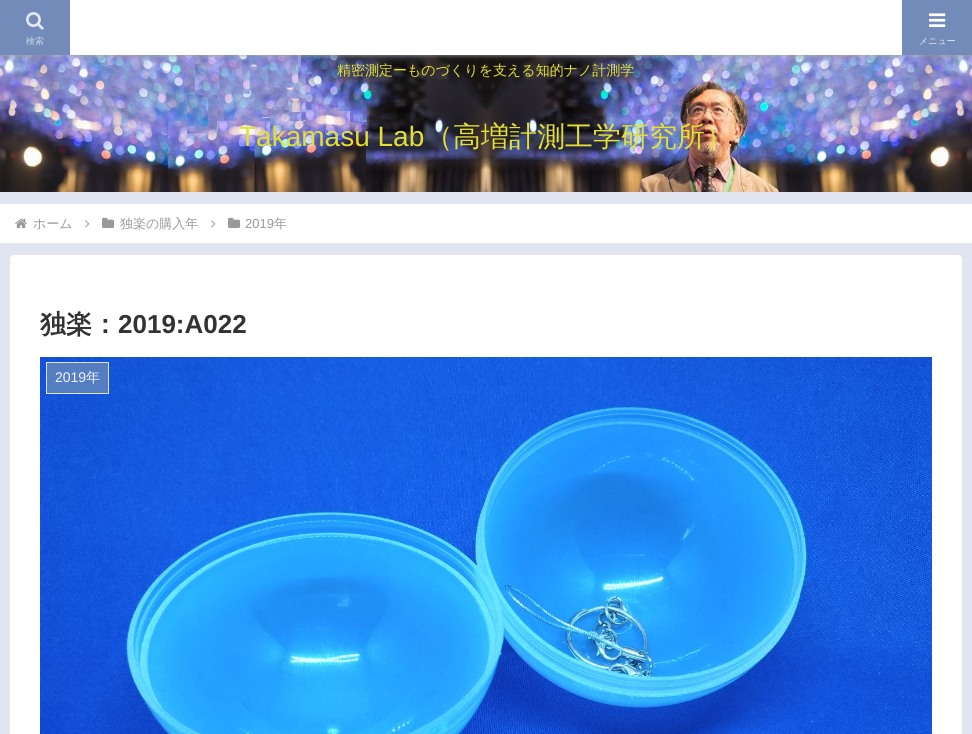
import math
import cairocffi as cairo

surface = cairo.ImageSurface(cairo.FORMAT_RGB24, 972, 734)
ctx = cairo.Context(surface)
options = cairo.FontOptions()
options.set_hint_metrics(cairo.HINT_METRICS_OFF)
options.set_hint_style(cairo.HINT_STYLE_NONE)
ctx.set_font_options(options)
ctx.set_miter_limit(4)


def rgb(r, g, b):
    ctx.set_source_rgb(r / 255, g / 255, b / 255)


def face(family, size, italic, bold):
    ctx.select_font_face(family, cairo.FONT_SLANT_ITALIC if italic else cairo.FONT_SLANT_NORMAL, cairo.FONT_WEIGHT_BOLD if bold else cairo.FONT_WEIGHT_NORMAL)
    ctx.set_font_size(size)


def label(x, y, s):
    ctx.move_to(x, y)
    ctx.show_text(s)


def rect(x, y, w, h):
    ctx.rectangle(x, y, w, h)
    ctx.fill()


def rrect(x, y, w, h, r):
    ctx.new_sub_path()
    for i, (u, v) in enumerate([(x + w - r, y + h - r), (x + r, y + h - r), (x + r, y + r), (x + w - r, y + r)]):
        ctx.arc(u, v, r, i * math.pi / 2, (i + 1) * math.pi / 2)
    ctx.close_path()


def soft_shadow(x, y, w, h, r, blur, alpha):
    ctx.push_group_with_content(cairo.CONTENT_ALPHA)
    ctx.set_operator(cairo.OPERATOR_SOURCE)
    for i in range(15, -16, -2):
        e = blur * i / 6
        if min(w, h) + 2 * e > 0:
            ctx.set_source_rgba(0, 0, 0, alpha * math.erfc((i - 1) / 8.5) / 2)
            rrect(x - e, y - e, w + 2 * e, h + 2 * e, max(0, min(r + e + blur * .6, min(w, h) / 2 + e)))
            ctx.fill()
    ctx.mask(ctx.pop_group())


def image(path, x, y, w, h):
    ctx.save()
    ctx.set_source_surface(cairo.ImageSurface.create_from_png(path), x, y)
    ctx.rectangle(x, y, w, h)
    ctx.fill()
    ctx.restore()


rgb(225, 229, 242)
ctx.paint()
image('image2.png', 0, 55, 972, 137)
rgb(169, 169, 169)
soft_shadow(0, 0, 972, 55, 0, 2.5, 1)
rgb(255, 255, 255)
rect(70, 0, 832, 55)
rgb(114, 139, 185)
rect(0, 0, 70, 55)
image('image0.png', 26, 12, 18, 18)
face('WenQuanYi Zen Hei Medium', 9, 0, 0)
rgb(204, 213, 230)
label(26, 44, '検索')
rgb(114, 139, 185)
rect(902, 0, 70, 55)
image('image1.png', 929, 13, 17, 14)
rgb(227, 232, 241)
label(919, 44, 'メニュー')
face('WenQuanYi Zen Hei Medium', 14, 0, 0)
rgb(226, 224, 52)
label(337, 75, '精密測定ーものづくりを支える知的ナノ計測学')
face('Liberation Sans', 28, 0, 0)
label(239, 146, 'Takamasu Lab')
face('WenQuanYi Zen Hei Medium', 28, 0, 0)
label(425, 146, '（高増計測工学研究所）')
rgb(255, 255, 255)
rect(0, 204, 972, 39)
image('image3.png', 15, 218, 12, 10)
face('WenQuanYi Zen Hei Medium', 13, 0, 0)
rgb(153, 153, 153)
label(33, 228, 'ホーム')
image('image4.png', 85, 220, 5, 8)
image('image5.png', 102, 217, 13, 11)
label(120, 228, '独楽の購入年')
image('image4.png', 211, 220, 5, 8)
image('image5.png', 228, 217, 13, 11)
face('Liberation Sans', 13, 0, 0)
label(245, 228, '2019')
face('WenQuanYi Zen Hei Medium', 13, 0, 0)
label(274, 228, '年')
rgb(255, 255, 255)
rrect(10, 255, 952, 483, 4)
ctx.fill()
face('WenQuanYi Zen Hei', 26, 0, 1)
rgb(51, 51, 51)
label(40, 333, '独楽：')
face('Liberation Sans', 26, 0, 1)
label(118, 333, '2019:A022')
image('image6.png', 40, 357, 892, 377)
ctx.set_source_rgba(0.357, 0.514, 0.749, 0.9)
ctx.rectangle(46.5, 362.5, 62, 31)
ctx.fill_preserve()
rgb(223, 227, 234)
ctx.set_line_width(1)
ctx.stroke()
face('Liberation Sans', 14, 0, 0)
rgb(238, 242, 249)
label(55, 382, '2019')
face('WenQuanYi Zen Hei Medium', 14, 0, 0)
label(86, 382, '年')
surface.write_to_png('render.png')
